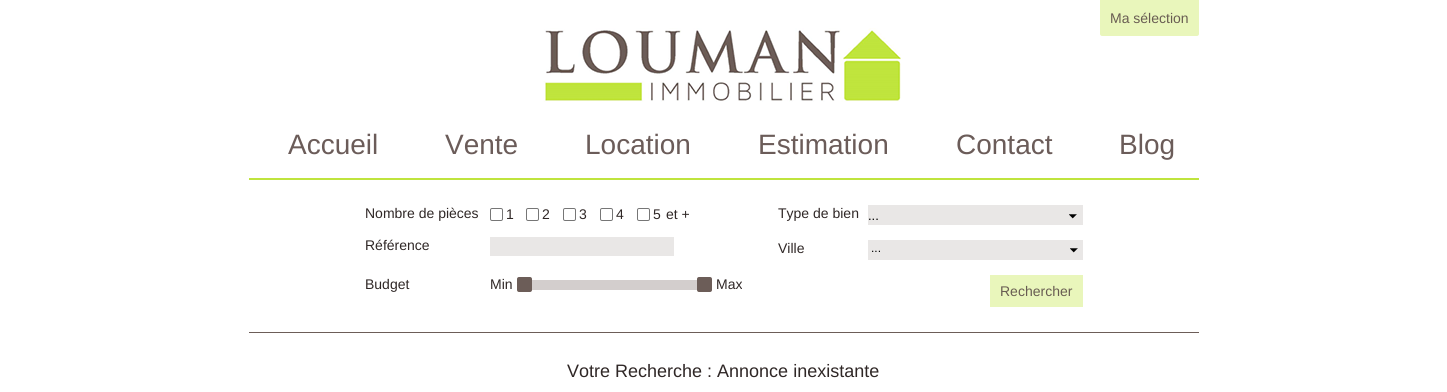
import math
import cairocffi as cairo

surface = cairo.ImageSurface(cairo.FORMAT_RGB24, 1447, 392)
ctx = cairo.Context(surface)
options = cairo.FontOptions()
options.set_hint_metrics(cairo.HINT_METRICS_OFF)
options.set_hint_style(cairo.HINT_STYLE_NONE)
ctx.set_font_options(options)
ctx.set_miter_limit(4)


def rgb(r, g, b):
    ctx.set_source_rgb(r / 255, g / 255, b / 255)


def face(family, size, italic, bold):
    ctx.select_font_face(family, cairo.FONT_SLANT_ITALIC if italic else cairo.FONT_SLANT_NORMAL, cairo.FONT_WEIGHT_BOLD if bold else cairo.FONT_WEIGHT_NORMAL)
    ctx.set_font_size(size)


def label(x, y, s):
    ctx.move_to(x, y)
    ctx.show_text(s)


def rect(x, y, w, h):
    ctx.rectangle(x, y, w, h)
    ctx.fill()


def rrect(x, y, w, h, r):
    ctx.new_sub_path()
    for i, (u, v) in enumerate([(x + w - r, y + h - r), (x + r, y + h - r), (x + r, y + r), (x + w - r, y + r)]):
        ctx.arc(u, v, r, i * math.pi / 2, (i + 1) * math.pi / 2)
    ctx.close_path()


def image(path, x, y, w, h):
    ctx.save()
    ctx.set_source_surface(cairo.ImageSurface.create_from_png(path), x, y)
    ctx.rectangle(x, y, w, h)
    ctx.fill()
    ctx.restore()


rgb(255, 255, 255)
ctx.paint()
rgb(233, 246, 187)
ctx.new_path()
ctx.move_to(1100, 0)
ctx.line_to(1199, 0)
ctx.line_to(1199, 34)
ctx.curve_to(1199, 35, 1198, 36, 1197, 36)
ctx.line_to(1102, 36)
ctx.curve_to(1101, 36, 1100, 35, 1100, 34)
ctx.close_path()
ctx.fill()
face('Liberation Sans', 14, 0, 0)
rgb(104, 92, 82)
label(1110, 23, 'Ma sélection')
image('image0.png', 543, 28, 358, 74)
rgb(191, 228, 61)
rect(249, 178, 950, 2)
face('Liberation Sans', 28, 0, 0)
rgb(107, 92, 89)
label(288, 154, 'Accueil')
label(445, 154, 'Vente')
label(585, 154, 'Location')
label(758, 154, 'Estimation')
label(956, 154, 'Contact')
label(1119, 154, 'Blog')
rgb(108, 93, 88)
rect(249, 332, 950, 1)
face('Liberation Sans', 14, 0, 0)
rgb(47, 39, 38)
label(365, 218, 'Nombre de pièces')
rrect(490.5, 208.5, 12, 12, 1.5)
rgb(118, 118, 118)
ctx.set_line_width(1)
ctx.stroke()
rgb(47, 39, 38)
label(506, 219, '1')
rrect(526.5, 208.5, 12, 12, 1.5)
rgb(118, 118, 118)
ctx.stroke()
rgb(47, 39, 38)
label(542, 219, '2')
rrect(563.5, 208.5, 12, 12, 1.5)
rgb(118, 118, 118)
ctx.stroke()
rgb(47, 39, 38)
label(579, 219, '3')
rrect(600.5, 208.5, 12, 12, 1.5)
rgb(118, 118, 118)
ctx.stroke()
rgb(47, 39, 38)
label(616, 219, '4')
rrect(637.5, 208.5, 12, 12, 1.5)
rgb(118, 118, 118)
ctx.stroke()
rgb(47, 39, 38)
label(653, 219, '5')
label(666, 219, 'et +')
label(365, 250, 'Référence')
rgb(233, 231, 230)
rect(490, 237, 184, 19)
rgb(47, 39, 38)
label(365, 289, 'Budget')
label(490, 289, 'Min')
rgb(108, 93, 88)
rrect(517, 277, 15, 15, 2)
ctx.fill()
rgb(211, 206, 205)
rect(532, 280, 165, 10)
rgb(108, 93, 88)
rrect(697, 277, 15, 15, 2)
ctx.fill()
rgb(47, 39, 38)
label(716, 289, 'Max')
label(778, 218, 'Type de bien')
rgb(233, 231, 230)
rect(868, 205, 215, 20)
face('Liberation Sans', 13, 0, 0)
rgb(0, 0, 0)
label(868, 220, '...')
image('image1.png', 1069, 214, 8, 5)
face('Liberation Sans', 14, 0, 0)
rgb(47, 39, 38)
label(778, 253, 'Ville')
rgb(233, 231, 230)
rect(868, 240, 215, 20)
face('Liberation Sans', 12, 0, 0)
rgb(0, 0, 0)
label(871, 252, '...')
image('image1.png', 1070, 248, 8, 5)
rgb(233, 246, 187)
rect(990, 275, 93, 32)
face('Liberation Sans', 14, 0, 0)
rgb(104, 92, 82)
label(1000, 296, 'Rechercher')
face('Liberation Sans', 18, 0, 0)
rgb(47, 39, 38)
label(567, 377, 'Votre Recherche : Annonce inexistante')
surface.write_to_png('render.png')
